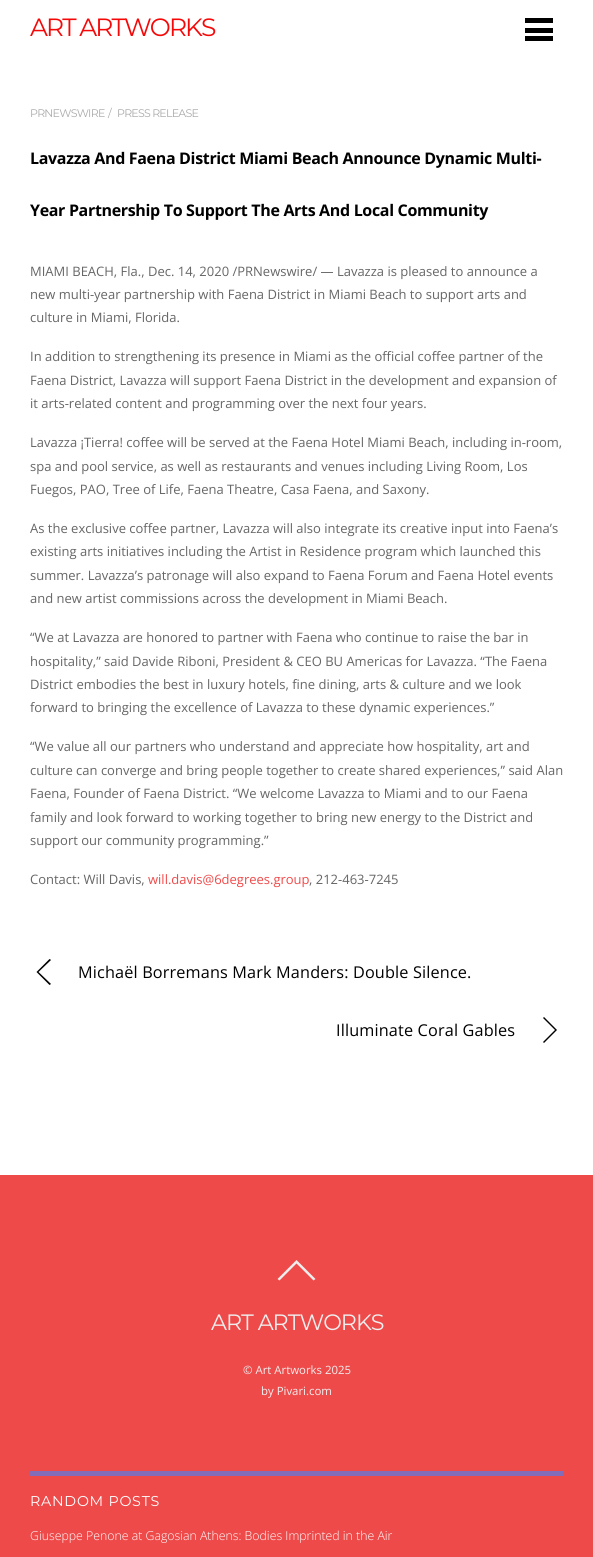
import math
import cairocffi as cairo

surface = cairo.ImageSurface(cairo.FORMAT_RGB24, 593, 1557)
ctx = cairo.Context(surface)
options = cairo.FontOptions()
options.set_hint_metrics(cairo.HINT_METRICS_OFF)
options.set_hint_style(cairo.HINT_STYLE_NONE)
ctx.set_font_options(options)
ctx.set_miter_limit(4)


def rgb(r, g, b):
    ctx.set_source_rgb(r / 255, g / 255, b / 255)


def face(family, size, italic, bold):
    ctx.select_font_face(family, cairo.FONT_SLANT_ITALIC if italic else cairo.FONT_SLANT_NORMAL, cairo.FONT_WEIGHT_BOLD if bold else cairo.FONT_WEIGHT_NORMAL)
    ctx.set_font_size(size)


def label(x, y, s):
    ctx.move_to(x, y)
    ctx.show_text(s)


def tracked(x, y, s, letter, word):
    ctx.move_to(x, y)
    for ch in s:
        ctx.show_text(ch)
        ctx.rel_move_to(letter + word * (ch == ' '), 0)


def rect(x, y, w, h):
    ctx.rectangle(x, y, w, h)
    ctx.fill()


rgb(255, 255, 255)
ctx.paint()
face('Montserrat', 25, 0, 0)
rgb(245, 8, 8)
tracked(30, 36, 'ART ARTWORKS', -1.9, 0)
rgb(0, 0, 0)
rect(525, 18, 28, 5)
rect(525, 36, 28, 5)
rect(525, 28, 28, 5)
face('Montserrat', 11, 0, 0)
rgb(170, 170, 170)
tracked(30, 117, 'PRNEWSWIRE', -0.75, 0)
tracked(108, 117, '/', -0.75, 0)
tracked(117, 117, 'PRESS RELEASE', -0.75, 0)
face('Open Sans', 16, 0, 1)
rgb(0, 0, 0)
tracked(30, 164, 'Lavazza And Faena District Miami Beach Announce Dynamic Multi-', -0.33, 0)
tracked(30, 216, 'Year Partnership To Support The Arts And Local Community', -0.33, 0)
face('Open Sans', 13, 0, 0)
rgb(102, 102, 102)
label(30, 276, 'MIAMI BEACH, Fla., Dec. 14, 2020 /PRNewswire/ — Lavazza is pleased to announce a')
label(30, 299, 'new multi-year partnership with Faena District in Miami Beach to support arts and')
label(30, 322, 'culture in Miami, Florida.')
label(30, 361, 'In addition to strengthening its presence in Miami as the official coffee partner of the')
label(30, 385, 'Faena District, Lavazza will support Faena District in the development and expansion of')
label(30, 408, 'it arts-related content and programming over the next four years.')
label(30, 447, 'Lavazza ¡Tierra! coffee will be served at the Faena Hotel Miami Beach, including in-room,')
label(30, 471, 'spa and pool service, as well as restaurants and venues including Living Room, Los')
label(30, 494, 'Fuegos, PAO, Tree of Life, Faena Theatre, Casa Faena, and Saxony.')
label(30, 533, 'As the exclusive coffee partner, Lavazza will also integrate its creative input into Faena’s')
label(30, 556, 'existing arts initiatives including the Artist in Residence program which launched this')
label(30, 580, 'summer. Lavazza’s patronage will also expand to Faena Forum and Faena Hotel events')
label(30, 603, 'and new artist commissions across the development in Miami Beach.')
label(30, 642, '“We at Lavazza are honored to partner with Faena who continue to raise the bar in')
label(30, 666, 'hospitality,” said Davide Riboni, President & CEO BU Americas for Lavazza. “The Faena')
label(30, 689, 'District embodies the best in luxury hotels, fine dining, arts & culture and we look')
label(30, 712, 'forward to bringing the excellence of Lavazza to these dynamic experiences.”')
label(30, 751, '“We value all our partners who understand and appreciate how hospitality, art and')
label(30, 775, 'culture can converge and bring people together to create shared experiences,” said Alan')
label(30, 798, 'Faena, Founder of Faena District. “We welcome Lavazza to Miami and to our Faena')
label(30, 822, 'family and look forward to working together to bring new energy to the District and')
label(30, 845, 'support our community programming.”')
label(30, 884, 'Contact: Will Davis,')
rgb(239, 74, 74)
label(148, 884, 'will.davis@6degrees.group')
rgb(102, 102, 102)
label(309, 884, ', 212-463-7245')
rgb(0, 0, 0)
ctx.new_path()
ctx.move_to(38.5, 972)
ctx.line_to(51, 984)
ctx.line_to(49.5, 985)
ctx.line_to(36.5, 972)
ctx.line_to(49.5, 959)
ctx.line_to(51, 960)
ctx.close_path()
ctx.fill()
face('Open Sans', 16.25, 0, 0)
tracked(78, 978, 'Michaël Borremans Mark Manders: Double Silence.', 0.15, 0)
tracked(336, 1036, 'Illuminate Coral Gables', 0.15, 0)
ctx.new_path()
ctx.move_to(557, 1030)
ctx.line_to(544, 1043)
ctx.line_to(543, 1042)
ctx.line_to(555, 1030)
ctx.line_to(543, 1018)
ctx.line_to(544, 1017)
ctx.close_path()
ctx.fill()
rgb(239, 74, 74)
rect(0, 1175, 593, 382)
rgb(238, 238, 238)
ctx.new_path()
ctx.move_to(315.5, 1279)
ctx.line_to(313.5, 1280.5)
ctx.line_to(296.5, 1263.5)
ctx.line_to(279.5, 1280.5)
ctx.line_to(277.5, 1279)
ctx.line_to(296.5, 1260)
ctx.close_path()
ctx.fill()
face('Montserrat', 22.25, 0, 0)
tracked(211, 1330, 'ART ARTWORKS', -1, 0)
face('Open Sans', 11.4, 0, 0)
label(243, 1374, '© Art Artworks 2025')
label(261, 1395, 'by Pivari.com')
rgb(131, 109, 185)
rect(30, 1471, 533, 5)
face('Montserrat', 14.25, 0, 0)
rgb(255, 255, 255)
tracked(30, 1506, 'RANDOM POSTS', 0.75, 0)
face('Open Sans Light', 12.3, 0, 0)
label(30, 1540, 'Giuseppe Penone at Gagosian Athens: Bodies Imprinted in the Air')
surface.write_to_png('render.png')
